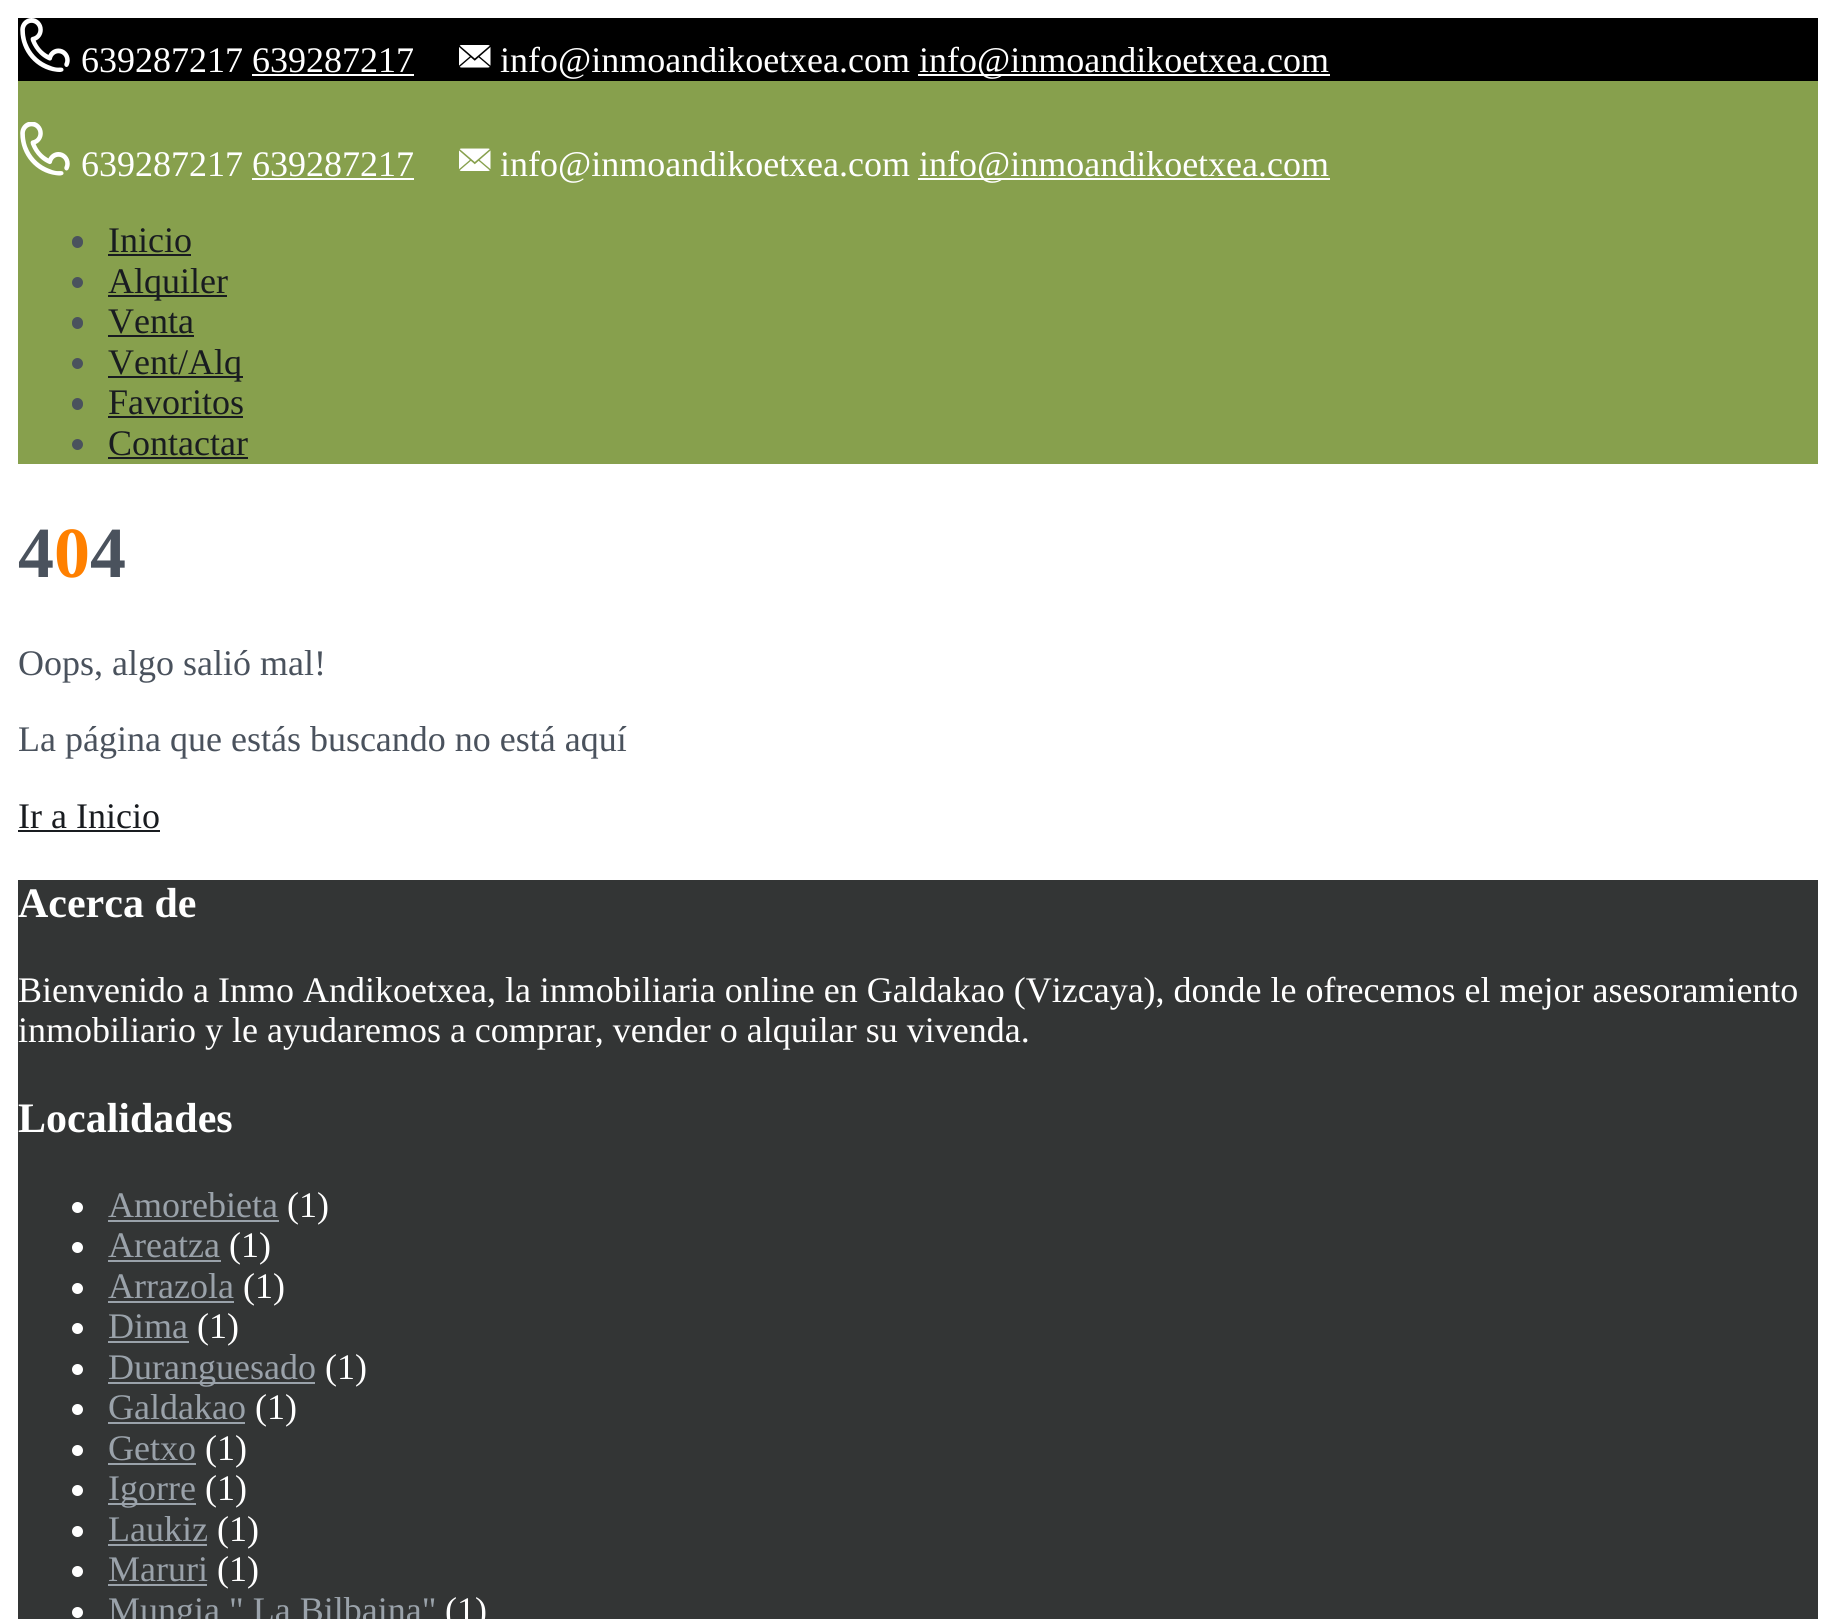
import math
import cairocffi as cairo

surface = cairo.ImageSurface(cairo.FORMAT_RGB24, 1836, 1619)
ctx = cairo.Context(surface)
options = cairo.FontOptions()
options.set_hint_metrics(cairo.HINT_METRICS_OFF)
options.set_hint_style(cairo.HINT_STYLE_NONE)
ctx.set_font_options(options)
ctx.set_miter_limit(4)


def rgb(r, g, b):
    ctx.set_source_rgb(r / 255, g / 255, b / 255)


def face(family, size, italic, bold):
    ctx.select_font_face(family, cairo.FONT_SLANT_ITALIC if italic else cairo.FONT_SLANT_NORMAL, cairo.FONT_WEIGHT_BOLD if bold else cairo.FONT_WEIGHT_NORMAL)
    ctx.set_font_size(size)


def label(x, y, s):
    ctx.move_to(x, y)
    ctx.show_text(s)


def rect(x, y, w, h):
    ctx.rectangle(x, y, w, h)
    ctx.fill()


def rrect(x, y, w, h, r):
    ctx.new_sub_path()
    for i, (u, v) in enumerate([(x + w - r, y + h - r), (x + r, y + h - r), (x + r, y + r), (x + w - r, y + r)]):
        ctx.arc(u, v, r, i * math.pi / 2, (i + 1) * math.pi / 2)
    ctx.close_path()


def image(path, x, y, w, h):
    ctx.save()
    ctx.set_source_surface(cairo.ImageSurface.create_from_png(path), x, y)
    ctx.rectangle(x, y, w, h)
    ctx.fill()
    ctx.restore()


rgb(255, 255, 255)
ctx.paint()
rgb(0, 0, 0)
rect(18, 18, 1800, 63)
image('image0.png', 20, 18, 50, 54)
face('Liberation Serif', 36, 0, 0)
rgb(255, 255, 255)
label(81, 72, '639287217 639287217')
image('image1.png', 459, 45, 32, 23)
label(500, 72, 'info@inmoandikoetxea.com')
rect(918, 74, 412, 2)
label(919, 72, 'info@inmoandikoetxea.com')
rect(252, 74, 162, 2)
rgb(135, 160, 77)
rect(18, 81, 1800, 383)
image('image2.png', 20, 122, 50, 54)
rgb(255, 255, 255)
label(81, 176, '639287217 639287217')
image('image3.png', 459, 148, 32, 23)
label(500, 176, 'info@inmoandikoetxea.com')
rect(918, 178, 412, 2)
label(919, 176, 'info@inmoandikoetxea.com')
rect(252, 178, 162, 2)
rgb(74, 82, 93)
rrect(72, 236, 11, 12, 5.5)
ctx.fill()
rgb(25, 28, 32)
label(108, 252, 'Inicio')
rect(108, 254, 83, 2)
rgb(74, 82, 93)
ctx.new_path()
ctx.arc(77.5, 282.5, 5.5, 0, 2 * math.pi)
ctx.fill()
rgb(25, 28, 32)
rect(108, 295, 119, 2)
label(108, 293, 'Alquiler')
rgb(74, 82, 93)
rrect(72, 317, 11, 12, 5.5)
ctx.fill()
rgb(25, 28, 32)
label(108, 333, 'Venta')
rect(108, 335, 86, 2)
rgb(74, 82, 93)
ctx.new_path()
ctx.arc(77.5, 363.5, 5.5, 0, 2 * math.pi)
ctx.fill()
rgb(25, 28, 32)
rect(108, 376, 135, 2)
label(108, 374, 'Vent/Alq')
rgb(74, 82, 93)
rrect(72, 398, 11, 12, 5.5)
ctx.fill()
rgb(25, 28, 32)
label(108, 414, 'Favoritos')
rect(108, 416, 135, 2)
rgb(74, 82, 93)
ctx.new_path()
ctx.arc(77.5, 444.5, 5.5, 0, 2 * math.pi)
ctx.fill()
rgb(25, 28, 32)
label(108, 455, 'Contactar')
rect(108, 457, 140, 2)
face('Liberation Serif', 72, 0, 1)
rgb(74, 82, 93)
label(18, 577, '4')
rgb(255, 128, 0)
label(54, 577, '0')
rgb(74, 82, 93)
label(90, 577, '4')
face('Liberation Serif', 36, 0, 0)
label(18, 675, 'Oops, algo salió mal!')
label(18, 751, 'La página que estás buscando no está aquí')
rgb(25, 28, 32)
label(18, 828, 'Ir a Inicio')
rect(18, 830, 142, 2)
rgb(51, 53, 53)
rect(18, 880, 1800, 739)
face('Liberation Serif', 42, 0, 1)
rgb(255, 255, 255)
label(18, 917, 'Acerca de')
face('Liberation Serif', 36, 0, 0)
label(18, 1002, 'Bienvenido a Inmo Andikoetxea, la inmobiliaria online en Galdakao (Vizcaya), donde le ofrecemos el mejor asesoramiento')
label(18, 1042, 'inmobiliario y le ayudaremos a comprar, vender o alquilar su vivenda.')
face('Liberation Serif', 42, 0, 1)
label(18, 1132, 'Localidades')
ctx.new_path()
ctx.arc(77.5, 1207.5, 5.5, 0, 2 * math.pi)
ctx.fill()
face('Liberation Serif', 36, 0, 0)
rgb(154, 162, 170)
label(108, 1217, 'Amorebieta')
rect(108, 1220, 171, 2)
rgb(255, 255, 255)
label(287, 1217, '(1)')
ctx.new_path()
ctx.arc(77.5, 1247.5, 5.5, 0, 2 * math.pi)
ctx.fill()
rgb(154, 162, 170)
label(108, 1257, 'Areatza')
rect(108, 1260, 113, 2)
rgb(255, 255, 255)
label(229, 1257, '(1)')
ctx.new_path()
ctx.arc(77.5, 1288.5, 5.5, 0, 2 * math.pi)
ctx.fill()
rgb(154, 162, 170)
label(108, 1298, 'Arrazola')
rect(108, 1301, 126, 2)
rgb(255, 255, 255)
label(243, 1298, '(1)')
ctx.new_path()
ctx.arc(77.5, 1328.5, 5.5, 0, 2 * math.pi)
ctx.fill()
rgb(154, 162, 170)
label(108, 1338, 'Dima')
rect(108, 1341, 81, 2)
rgb(255, 255, 255)
label(197, 1338, '(1)')
ctx.new_path()
ctx.arc(77.5, 1369.5, 5.5, 0, 2 * math.pi)
ctx.fill()
rgb(154, 162, 170)
rect(108, 1382, 207, 2)
label(108, 1379, 'Duranguesado')
rgb(255, 255, 255)
label(325, 1379, '(1)')
ctx.new_path()
ctx.arc(77.5, 1409.5, 5.5, 0, 2 * math.pi)
ctx.fill()
rgb(154, 162, 170)
label(108, 1419, 'Galdakao')
rect(108, 1422, 137, 2)
rgb(255, 255, 255)
label(255, 1419, '(1)')
ctx.new_path()
ctx.arc(77.5, 1450.5, 5.5, 0, 2 * math.pi)
ctx.fill()
rgb(154, 162, 170)
label(108, 1460, 'Getxo')
rect(108, 1463, 88, 2)
rgb(255, 255, 255)
label(205, 1460, '(1)')
ctx.new_path()
ctx.arc(77.5, 1490.5, 5.5, 0, 2 * math.pi)
ctx.fill()
rgb(154, 162, 170)
rect(108, 1503, 88, 2)
label(108, 1500, 'Igorre')
rgb(255, 255, 255)
label(205, 1500, '(1)')
ctx.new_path()
ctx.arc(77.5, 1531.5, 5.5, 0, 2 * math.pi)
ctx.fill()
rgb(154, 162, 170)
label(108, 1541, 'Laukiz')
rect(108, 1544, 99, 2)
rgb(255, 255, 255)
label(217, 1541, '(1)')
ctx.new_path()
ctx.arc(77.5, 1571.5, 5.5, 0, 2 * math.pi)
ctx.fill()
rgb(154, 162, 170)
label(108, 1581, 'Maruri')
rect(108, 1584, 99, 2)
rgb(255, 255, 255)
label(217, 1581, '(1)')
ctx.new_path()
ctx.arc(77.5, 1612.5, 5.5, 0, 2 * math.pi)
ctx.fill()
rgb(154, 162, 170)
label(108, 1622, 'Mungia " La Bilbaina"')
rgb(255, 255, 255)
label(445, 1622, '(1)')
surface.write_to_png('render.png')
